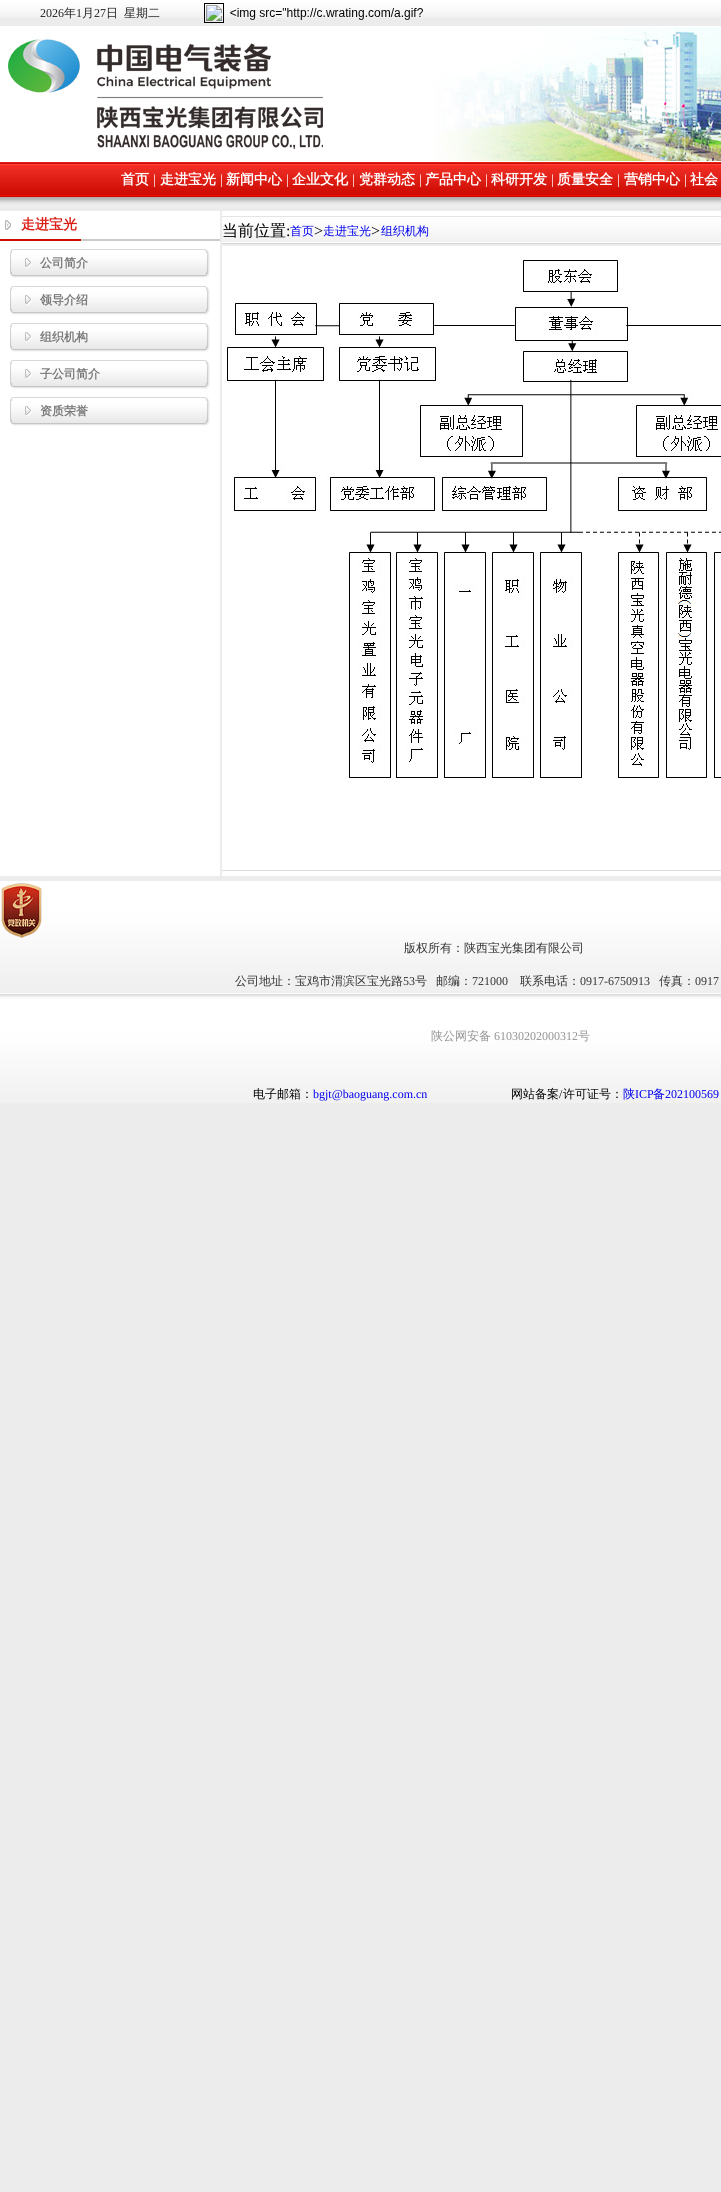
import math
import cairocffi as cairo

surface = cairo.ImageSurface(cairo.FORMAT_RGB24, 721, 2192)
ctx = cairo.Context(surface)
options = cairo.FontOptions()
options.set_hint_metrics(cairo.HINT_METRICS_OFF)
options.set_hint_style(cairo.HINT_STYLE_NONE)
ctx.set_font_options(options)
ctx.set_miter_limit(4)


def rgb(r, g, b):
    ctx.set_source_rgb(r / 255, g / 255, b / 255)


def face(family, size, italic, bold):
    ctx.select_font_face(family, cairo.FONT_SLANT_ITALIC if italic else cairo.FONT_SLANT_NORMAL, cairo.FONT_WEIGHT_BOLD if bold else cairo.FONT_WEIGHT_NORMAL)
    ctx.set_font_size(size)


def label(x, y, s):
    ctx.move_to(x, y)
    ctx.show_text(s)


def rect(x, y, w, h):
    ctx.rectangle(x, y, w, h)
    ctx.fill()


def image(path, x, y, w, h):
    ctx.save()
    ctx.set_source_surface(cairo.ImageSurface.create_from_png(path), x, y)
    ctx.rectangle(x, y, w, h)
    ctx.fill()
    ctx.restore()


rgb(236, 236, 236)
ctx.paint()
image('image0.png', 0, 0, 200, 18)
face('Liberation Serif', 12, 0, 0)
rgb(34, 34, 34)
label(40, 17, '2026')
face('WenQuanYi Zen Hei Medium', 12, 0, 0)
label(64, 17, '年')
face('Liberation Serif', 12, 0, 0)
label(76, 17, '1')
face('WenQuanYi Zen Hei Medium', 12, 0, 0)
label(82, 17, '月')
face('Liberation Serif', 12, 0, 0)
label(94, 17, '27')
face('WenQuanYi Zen Hei Medium', 12, 0, 0)
label(106, 17, '日')
label(124, 17, '星期二')
image('image1.png', 200, 0, 240, 18)
image('image2.png', 204, 3, 219, 20)
image('image3.png', 440, 0, 281, 18)
rgb(255, 255, 255)
rect(0, 26, 721, 136)
image('image4.png', 8, 27, 713, 135)
image('image5.png', 0, 162, 721, 35)
face('WenQuanYi Zen Hei', 14, 0, 1)
label(121, 184, '首页')
face('Liberation Serif', 14, 0, 0)
label(153, 184, '|')
face('WenQuanYi Zen Hei', 14, 0, 1)
label(160, 184, '走进宝光')
face('Liberation Serif', 14, 0, 0)
label(220, 184, '|')
face('WenQuanYi Zen Hei', 14, 0, 1)
label(226, 184, '新闻中心')
face('Liberation Serif', 14, 0, 0)
label(286, 184, '|')
face('WenQuanYi Zen Hei', 14, 0, 1)
label(292, 184, '企业文化')
face('Liberation Serif', 14, 0, 0)
label(352, 184, '|')
face('WenQuanYi Zen Hei', 14, 0, 1)
label(359, 184, '党群动态')
face('Liberation Serif', 14, 0, 0)
label(419, 184, '|')
face('WenQuanYi Zen Hei', 14, 0, 1)
label(425, 184, '产品中心')
face('Liberation Serif', 14, 0, 0)
label(485, 184, '|')
face('WenQuanYi Zen Hei', 14, 0, 1)
label(491, 184, '科研开发')
face('Liberation Serif', 14, 0, 0)
label(551, 184, '|')
face('WenQuanYi Zen Hei', 14, 0, 1)
label(557, 184, '质量安全')
face('Liberation Serif', 14, 0, 0)
label(617, 184, '|')
face('WenQuanYi Zen Hei', 14, 0, 1)
label(624, 184, '营销中心')
face('Liberation Serif', 14, 0, 0)
label(684, 184, '|')
face('WenQuanYi Zen Hei', 14, 0, 1)
label(690, 184, '社会')
image('image6.png', 0, 197, 721, 9)
rect(0, 211, 220, 665)
image('image7.png', 5, 220, 6, 10)
rgb(218, 31, 22)
label(21, 229, '走进宝光')
rgb(205, 11, 2)
rect(0, 239, 81, 2)
rgb(204, 204, 204)
rect(81, 239, 139, 2)
image('image8.png', 10, 249, 200, 29)
face('WenQuanYi Zen Hei', 12, 0, 1)
rgb(120, 120, 120)
label(40, 267, '公司简介')
image('image8.png', 10, 286, 200, 29)
label(40, 304, '领导介绍')
image('image8.png', 10, 323, 200, 29)
label(40, 341, '组织机构')
image('image8.png', 10, 360, 200, 29)
label(40, 378, '子公司简介')
image('image8.png', 10, 397, 200, 29)
label(40, 415, '资质荣誉')
rgb(255, 255, 255)
rect(222, 211, 499, 665)
image('image9.png', 222, 216, 499, 30)
face('WenQuanYi Zen Hei Medium', 16, 0, 0)
rgb(0, 0, 0)
label(222, 236, '当前位置')
face('Liberation Serif', 16, 0, 0)
label(286, 236, ':')
face('WenQuanYi Zen Hei Medium', 12, 0, 0)
rgb(0, 0, 238)
label(290, 235, '首页')
face('Liberation Serif', 16, 0, 0)
rgb(0, 0, 0)
label(314, 236, '>')
face('WenQuanYi Zen Hei Medium', 12, 0, 0)
rgb(0, 0, 238)
label(323, 235, '走进宝光')
face('Liberation Serif', 16, 0, 0)
rgb(0, 0, 0)
label(371, 236, '>')
face('WenQuanYi Zen Hei Medium', 12, 0, 0)
rgb(0, 0, 238)
label(381, 235, '组织机构')
image('image10.png', 225, 257, 496, 526)
rgb(221, 221, 221)
rect(222, 870, 499, 1)
image('image11.png', 0, 881, 721, 222)
image('image12.png', 1, 883, 41, 55)
rgb(51, 51, 51)
label(404, 952, '版权所有：陕西宝光集团有限公司')
label(235, 985, '公司地址：宝鸡市渭滨区宝光路')
face('Liberation Serif', 12, 0, 0)
label(403, 985, '53')
face('WenQuanYi Zen Hei Medium', 12, 0, 0)
label(415, 985, '号')
label(436, 985, '邮编：')
face('Liberation Serif', 12, 0, 0)
label(472, 985, '721000')
face('WenQuanYi Zen Hei Medium', 12, 0, 0)
label(520, 985, '联系电话：')
face('Liberation Serif', 12, 0, 0)
label(580, 985, '0917-6750913')
face('WenQuanYi Zen Hei Medium', 12, 0, 0)
label(659, 985, '传真：')
face('Liberation Serif', 12, 0, 0)
label(695, 985, '0917')
face('WenQuanYi Zen Hei Medium', 12, 0, 0)
rgb(147, 147, 147)
label(431, 1040, '陕公网安备')
face('Liberation Serif', 12, 0, 0)
label(494, 1040, '61030202000312')
face('WenQuanYi Zen Hei Medium', 12, 0, 0)
label(578, 1040, '号')
rgb(0, 0, 0)
label(253, 1098, '电子邮箱：')
face('Liberation Serif', 12, 0, 0)
rgb(0, 0, 238)
label(313, 1098, 'bgjt@baoguang.com.cn')
face('WenQuanYi Zen Hei Medium', 12, 0, 0)
rgb(0, 0, 0)
label(511, 1098, '网站备案')
face('Liberation Serif', 12, 0, 0)
label(559, 1098, '/')
face('WenQuanYi Zen Hei Medium', 12, 0, 0)
label(563, 1098, '许可证号：')
rgb(0, 0, 238)
label(623, 1098, '陕')
face('Liberation Serif', 12, 0, 0)
label(635, 1098, 'ICP')
face('WenQuanYi Zen Hei Medium', 12, 0, 0)
label(653, 1098, '备')
face('Liberation Serif', 12, 0, 0)
label(665, 1098, '202100569')
surface.write_to_png('render.png')
